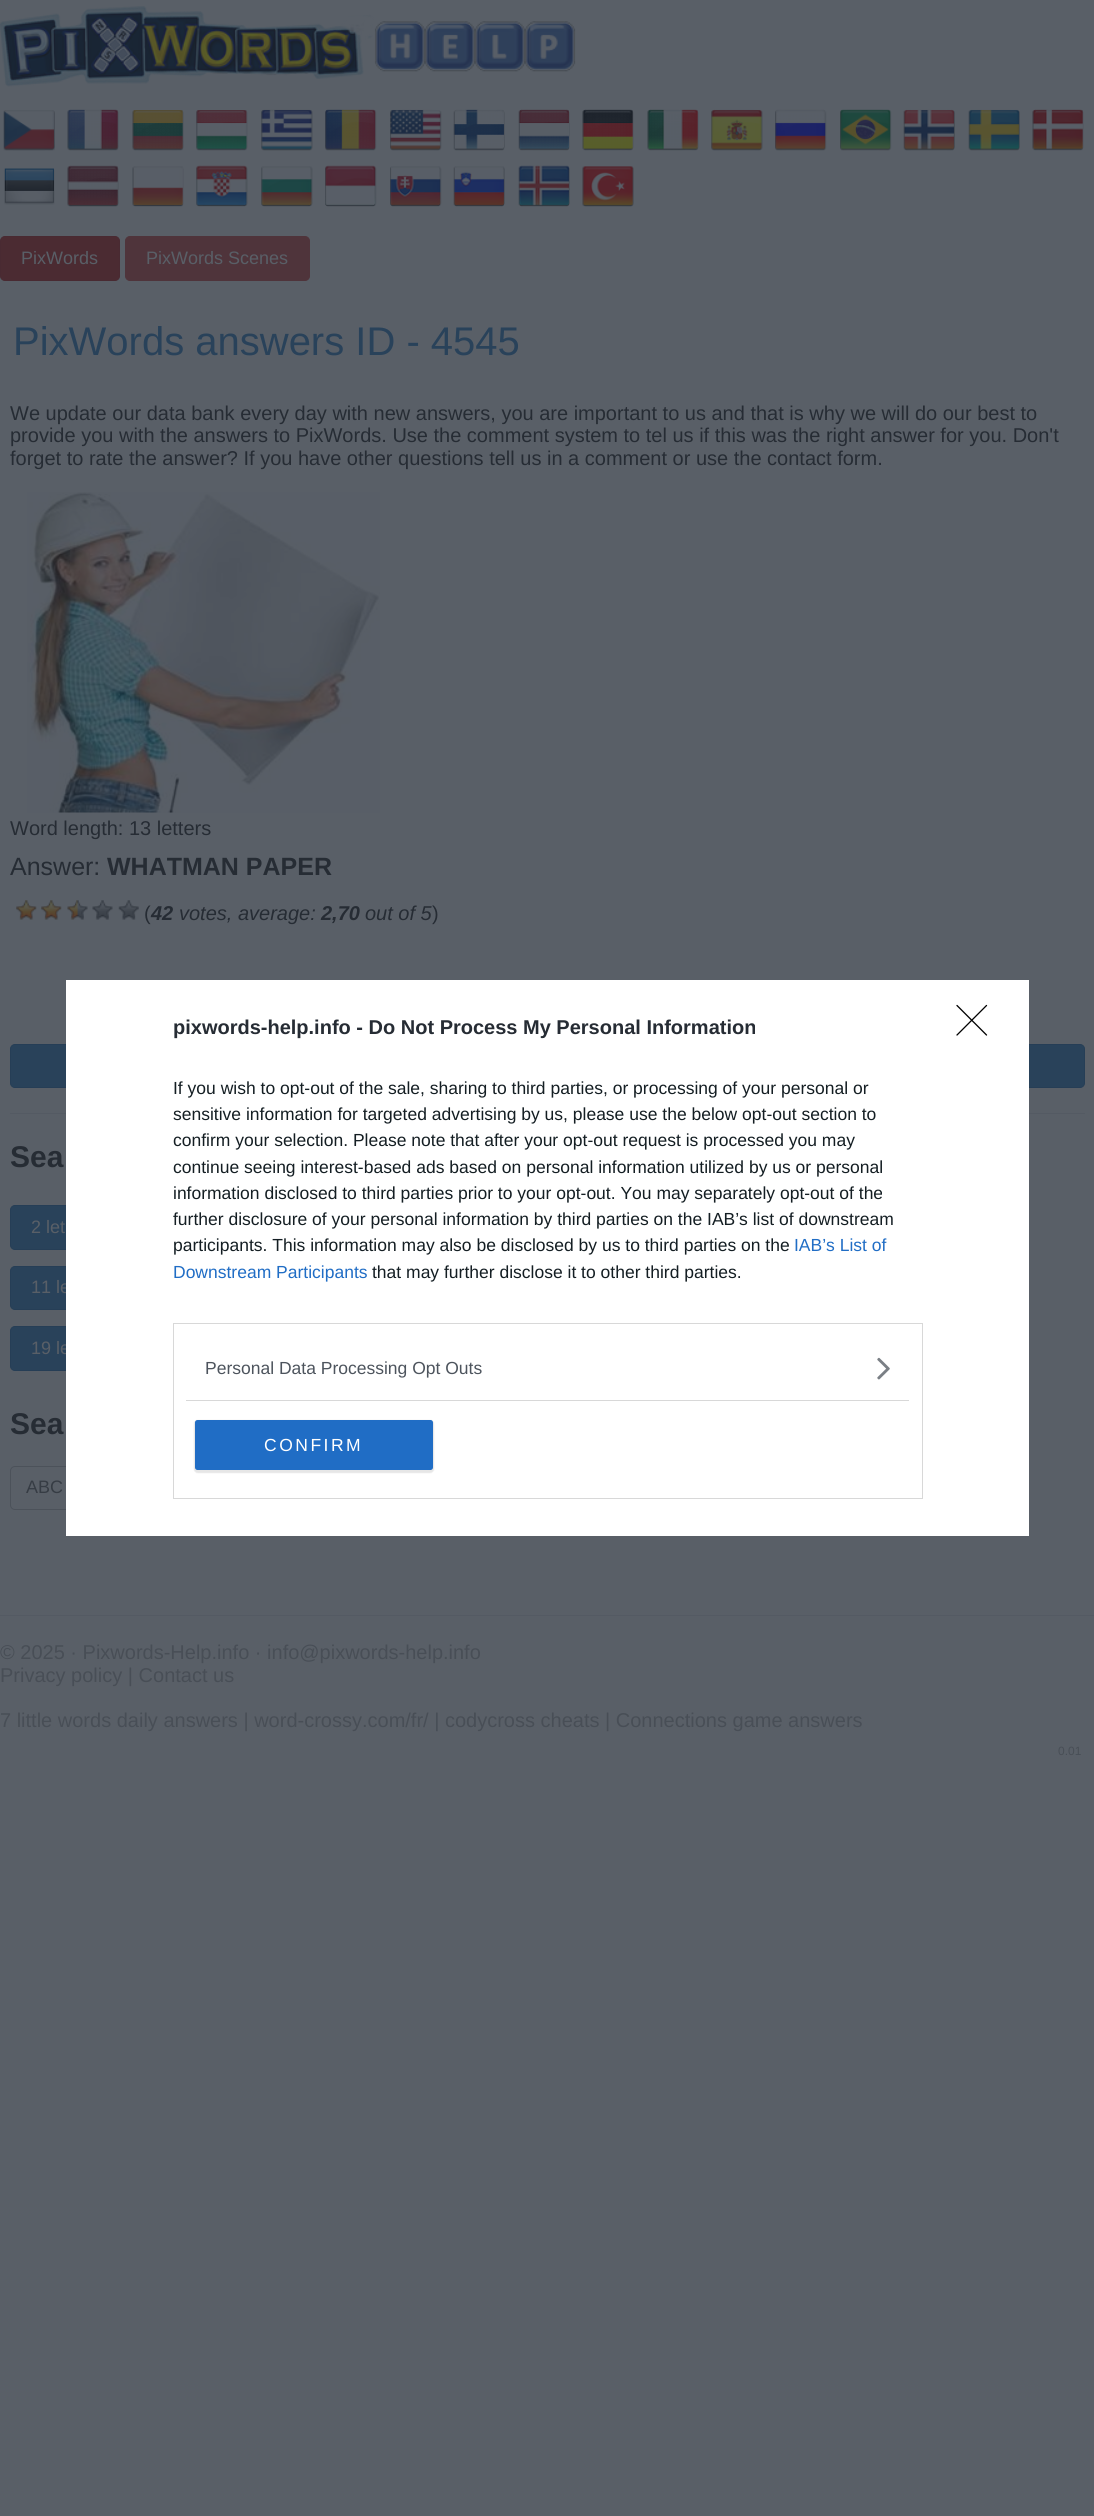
import math
import cairocffi as cairo

surface = cairo.ImageSurface(cairo.FORMAT_RGB24, 1094, 2516)
ctx = cairo.Context(surface)
options = cairo.FontOptions()
options.set_hint_metrics(cairo.HINT_METRICS_OFF)
options.set_hint_style(cairo.HINT_STYLE_NONE)
ctx.set_font_options(options)
ctx.set_miter_limit(4)


def rgb(r, g, b):
    ctx.set_source_rgb(r / 255, g / 255, b / 255)


def face(family, size, italic, bold):
    ctx.select_font_face(family, cairo.FONT_SLANT_ITALIC if italic else cairo.FONT_SLANT_NORMAL, cairo.FONT_WEIGHT_BOLD if bold else cairo.FONT_WEIGHT_NORMAL)
    ctx.set_font_size(size)


def label(x, y, s):
    ctx.move_to(x, y)
    ctx.show_text(s)


def tracked(x, y, s, letter, word):
    ctx.move_to(x, y)
    for ch in s:
        ctx.show_text(ch)
        ctx.rel_move_to(letter + word * (ch == ' '), 0)


def rect(x, y, w, h):
    ctx.rectangle(x, y, w, h)
    ctx.fill()


def rrect(x, y, w, h, r):
    ctx.new_sub_path()
    for i, (u, v) in enumerate([(x + w - r, y + h - r), (x + r, y + h - r), (x + r, y + r), (x + w - r, y + r)]):
        ctx.arc(u, v, r, i * math.pi / 2, (i + 1) * math.pi / 2)
    ctx.close_path()


def soft_shadow(x, y, w, h, r, blur, alpha):
    ctx.push_group_with_content(cairo.CONTENT_ALPHA)
    ctx.set_operator(cairo.OPERATOR_SOURCE)
    for i in range(15, -16, -2):
        e = blur * i / 6
        if min(w, h) + 2 * e > 0:
            ctx.set_source_rgba(0, 0, 0, alpha * math.erfc((i - 1) / 8.5) / 2)
            rrect(x - e, y - e, w + 2 * e, h + 2 * e, max(0, min(r + e + blur * .6, min(w, h) / 2 + e)))
            ctx.fill()
    ctx.mask(ctx.pop_group())


def image(path, x, y, w, h):
    ctx.save()
    ctx.set_source_surface(cairo.ImageSurface.create_from_png(path), x, y)
    ctx.rectangle(x, y, w, h)
    ctx.fill()
    ctx.restore()


rgb(89, 95, 103)
ctx.paint()
image('image0.png', 0, 6, 576, 81)
image('image1.png', 3, 110, 52, 41)
image('image2.png', 67, 109, 52, 42)
image('image3.png', 132, 110, 52, 41)
image('image4.png', 196, 110, 52, 41)
image('image5.png', 261, 109, 52, 42)
image('image6.png', 325, 109, 52, 42)
image('image7.png', 390, 109, 52, 42)
image('image8.png', 453, 109, 52, 42)
image('image9.png', 518, 109, 52, 42)
image('image10.png', 582, 109, 52, 42)
image('image11.png', 647, 109, 52, 42)
image('image12.png', 711, 109, 52, 42)
image('image13.png', 775, 109, 52, 42)
image('image14.png', 840, 109, 52, 42)
image('image15.png', 903, 109, 52, 42)
image('image16.png', 968, 109, 52, 42)
image('image17.png', 1032, 109, 52, 42)
image('image18.png', 4, 168, 51, 37)
image('image19.png', 67, 165, 52, 42)
image('image20.png', 132, 166, 52, 41)
image('image21.png', 196, 165, 52, 42)
image('image22.png', 261, 166, 52, 41)
image('image23.png', 325, 165, 52, 42)
image('image24.png', 390, 166, 52, 41)
image('image25.png', 453, 166, 52, 41)
image('image26.png', 518, 165, 52, 42)
image('image27.png', 582, 166, 52, 41)
rgb(75, 43, 50)
rrect(0.5, 236.5, 119, 44, 4.5)
ctx.fill_preserve()
rgb(73, 42, 50)
ctx.set_line_width(1)
ctx.stroke()
face('Liberation Sans', 18, 0, 0)
rgb(89, 95, 103)
label(21, 264, 'PixWords')
rgb(79, 52, 59)
rrect(125.5, 236.5, 184, 44, 4.5)
ctx.fill_preserve()
ctx.stroke()
rgb(89, 95, 103)
label(146, 264, 'PixWords Scenes')
face('Liberation Sans', 40, 0, 0)
rgb(41, 66, 90)
label(13, 355, 'PixWords answers ID - 4545')
face('Liberation Sans', 20, 0, 0)
rgb(38, 44, 52)
label(10, 420, 'We update our data bank every day with new answers, you are important to us and that is why we will do our best to')
label(10, 442, 'provide you with the answers to PixWords. Use the comment system to tel us if this was the right answer for you. Don\'t')
label(10, 465, 'forget to rate the answer? If you have other questions tell us in a comment or use the contact form.')
image('image28.png', 27, 492, 353, 321)
label(10, 835, 'Word length: 13 letters')
face('Liberation Sans', 25, 0, 0)
label(10, 875, 'Answer:')
face('Liberation Sans', 25, 0, 1)
label(107, 875, 'WHATMAN PAPER')
image('image29.png', 16, 900, 21, 20)
image('image29.png', 41, 900, 21, 20)
image('image30.png', 67, 900, 21, 20)
image('image31.png', 92, 900, 21, 20)
image('image32.png', 118, 900, 21, 20)
face('Liberation Sans', 20, 0, 0)
label(144, 920, '(')
face('Liberation Sans', 20, 1, 1)
label(151, 920, '42')
face('Liberation Sans', 20, 1, 0)
label(179, 920, 'votes, average:')
face('Liberation Sans', 20, 1, 1)
label(321, 920, '2,70')
face('Liberation Sans', 20, 1, 0)
label(365, 920, 'out of 5')
face('Liberation Sans', 20, 0, 0)
label(432, 920, ')')
rgb(41, 66, 90)
rrect(10.5, 1044.5, 1074, 43, 4.5)
ctx.fill_preserve()
rgb(38, 62, 86)
ctx.stroke()
rgb(84, 90, 99)
rect(10, 1113, 1075, 1)
face('Liberation Sans', 30, 0, 1)
rgb(38, 44, 52)
label(10, 1167, 'Sea')
rgb(41, 66, 90)
rrect(10.5, 1205.5, 105, 44, 4.5)
ctx.fill_preserve()
rgb(38, 62, 86)
ctx.stroke()
face('Liberation Sans', 18, 0, 0)
rgb(89, 95, 103)
label(31, 1233, '2 let')
rgb(41, 66, 90)
rrect(10.5, 1266.5, 115, 43, 4.5)
ctx.fill_preserve()
rgb(38, 62, 86)
ctx.stroke()
rgb(89, 95, 103)
label(31, 1293, '11 le')
rgb(41, 66, 90)
rrect(10.5, 1326.5, 115, 44, 4.5)
ctx.fill_preserve()
rgb(38, 62, 86)
ctx.stroke()
rgb(89, 95, 103)
label(31, 1354, '19 le')
face('Liberation Sans', 30, 0, 1)
rgb(38, 44, 52)
label(10, 1434, 'Sea')
ctx.new_path()
ctx.move_to(15, 1466.5)
ctx.line_to(317.5, 1466.5)
ctx.line_to(317.5, 1509.5)
ctx.line_to(15, 1509.5)
ctx.curve_to(12.5, 1509.5, 10.5, 1507.5, 10.5, 1505)
ctx.line_to(10.5, 1471)
ctx.curve_to(10.5, 1468.5, 12.5, 1466.5, 15, 1466.5)
ctx.close_path()
rgb(76, 82, 90)
ctx.stroke()
face('Liberation Sans', 18, 0, 0)
rgb(54, 60, 68)
label(26, 1493, 'ABC')
rgb(84, 90, 99)
rect(0, 1615, 1094, 1)
face('Liberation Sans', 20, 0, 0)
rgb(72, 78, 86)
label(0, 1659, '© 2025 · Pixwords-Help.info · info@pixwords-help.info')
label(0, 1682, 'Privacy policy | Contact us')
label(0, 1727, '7 little words daily answers | word-crossy.com/fr/ | codycross cheats | Connections game answers')
rgb(255, 255, 255)
rect(66, 980, 963, 556)
face('Liberation Sans', 20, 0, 1)
rgb(38, 44, 52)
label(173, 1034, 'pixwords-help.info - Do Not Process My Personal Information')
face('Liberation Sans', 17.5, 0, 0)
rgb(20, 30, 35)
label(173, 1094, 'If you wish to opt-out of the sale, sharing to third parties, or processing of your personal or')
label(173, 1120, 'sensitive information for targeted advertising by us, please use the below opt-out section to')
label(173, 1146, 'confirm your selection. Please note that after your opt-out request is processed you may')
label(173, 1173, 'continue seeing interest-based ads based on personal information utilized by us or personal')
label(173, 1199, 'information disclosed to third parties prior to your opt-out. You may separately opt-out of the')
label(173, 1225, 'further disclosure of your personal information by third parties on the IAB’s list of downstream')
label(173, 1251, 'participants. This information may also be disclosed by us to third parties on the')
rgb(32, 109, 197)
label(794, 1251, 'IAB’s List of')
label(173, 1278, 'Downstream Participants')
rgb(20, 30, 35)
label(372, 1278, 'that may further disclose it to other third parties.')
ctx.rectangle(173.5, 1323.5, 749, 175)
rgb(216, 216, 216)
ctx.stroke()
rect(186, 1400, 723, 1)
rgb(77, 84, 93)
label(205, 1374, 'Personal Data Processing Opt Outs')
image('image33.png', 877, 1357, 13, 23)
rgb(0, 0, 0)
soft_shadow(194, 1420, 240, 53, 4, 0.5, 0.1)
rgb(32, 109, 197)
rrect(195, 1420, 238, 50, 2.5)
ctx.fill()
rgb(255, 255, 255)
tracked(264, 1451, 'CONFIRM', 2.5, 0)
ctx.new_path()
ctx.move_to(957, 1005.5)
ctx.line_to(986.5, 1035)
ctx.move_to(986.5, 1005.5)
ctx.line_to(957, 1035)
rgb(0, 0, 0)
ctx.set_line_width(1.3)
ctx.set_line_cap(cairo.LINE_CAP_ROUND)
ctx.set_line_join(cairo.LINE_JOIN_ROUND)
ctx.stroke()
face('Liberation Sans', 12, 0, 0)
rgb(72, 78, 86)
label(1058, 1755, '0.01')
surface.write_to_png('render.png')
